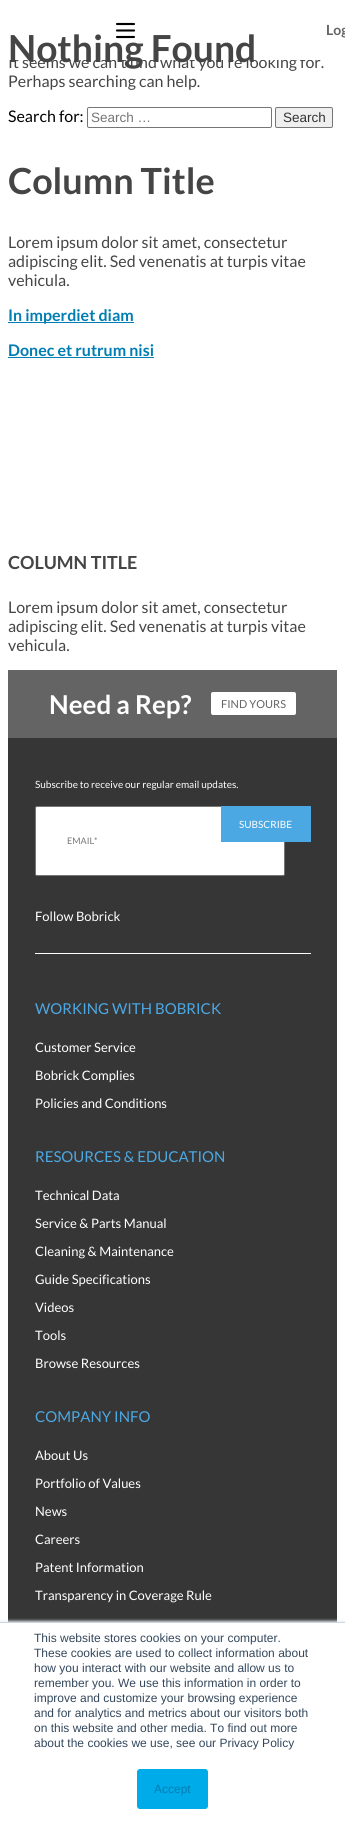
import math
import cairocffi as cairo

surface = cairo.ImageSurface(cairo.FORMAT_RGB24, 345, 1829)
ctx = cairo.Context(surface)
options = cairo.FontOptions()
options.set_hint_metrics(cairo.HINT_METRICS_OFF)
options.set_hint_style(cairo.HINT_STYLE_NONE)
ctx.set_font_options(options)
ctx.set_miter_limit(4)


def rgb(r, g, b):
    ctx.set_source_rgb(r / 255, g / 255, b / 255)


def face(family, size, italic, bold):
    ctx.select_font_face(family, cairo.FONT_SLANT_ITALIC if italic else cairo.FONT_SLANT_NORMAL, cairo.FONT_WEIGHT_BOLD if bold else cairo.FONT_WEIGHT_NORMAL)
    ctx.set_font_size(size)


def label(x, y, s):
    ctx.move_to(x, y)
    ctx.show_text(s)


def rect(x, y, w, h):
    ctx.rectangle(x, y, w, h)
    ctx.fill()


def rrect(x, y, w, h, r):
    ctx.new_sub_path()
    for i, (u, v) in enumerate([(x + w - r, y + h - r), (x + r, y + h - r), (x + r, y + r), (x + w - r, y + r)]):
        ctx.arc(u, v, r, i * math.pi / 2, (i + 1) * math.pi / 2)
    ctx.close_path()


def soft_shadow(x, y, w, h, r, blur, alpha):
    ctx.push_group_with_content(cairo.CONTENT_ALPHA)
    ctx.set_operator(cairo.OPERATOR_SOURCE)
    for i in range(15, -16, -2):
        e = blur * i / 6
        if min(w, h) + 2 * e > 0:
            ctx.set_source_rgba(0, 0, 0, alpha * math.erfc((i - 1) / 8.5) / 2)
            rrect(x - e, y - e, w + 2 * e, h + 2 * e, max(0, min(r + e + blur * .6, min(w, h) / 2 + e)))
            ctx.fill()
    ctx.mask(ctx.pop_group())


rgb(255, 255, 255)
ctx.paint()
face('Lato', 16, 0, 0)
rgb(69, 69, 69)
label(8, 68, 'It seems we can’t find what you’re looking for.')
rgb(255, 255, 255)
rect(9, 56, 312, 4)
ctx.new_path()
ctx.move_to(117, 37)
ctx.line_to(134, 37)
ctx.move_to(117, 30.5)
ctx.line_to(134, 30.5)
ctx.move_to(117, 24)
ctx.line_to(134, 24)
rgb(0, 0, 0)
ctx.set_line_width(2.1)
ctx.set_line_cap(cairo.LINE_CAP_ROUND)
ctx.stroke()
face('Lato', 14, 0, 1)
rgb(100, 100, 100)
label(326, 35, 'Log')
face('Lato', 37.25, 0, 1)
rgb(69, 69, 69)
label(8, 62, 'Nothing Found')
face('Lato', 16, 0, 0)
label(8, 87, 'Perhaps searching can help.')
rgb(0, 0, 0)
label(8, 122, 'Search for:')
rrect(87.5, 107.5, 184, 20, 1.5)
rgb(118, 118, 118)
ctx.set_line_width(1)
ctx.set_line_cap(cairo.LINE_CAP_BUTT)
ctx.stroke()
face('Liberation Sans', 13.5, 0, 0)
rgb(117, 117, 117)
label(91, 122, 'Search …')
rgb(239, 239, 239)
rrect(275.5, 107.5, 57, 20, 1.5)
ctx.fill_preserve()
rgb(118, 118, 118)
ctx.stroke()
rgb(51, 51, 51)
label(283, 122, 'Search')
face('Lato', 36, 0, 1)
rgb(69, 69, 69)
label(8, 194, 'Column Title')
face('Lato', 16, 0, 0)
label(8, 248, 'Lorem ipsum dolor sit amet, consectetur')
label(8, 267, 'adipiscing elit. Sed venenatis at turpis vitae')
label(8, 286, 'vehicula.')
rgb(0, 125, 179)
rect(8, 322, 126, 1)
face('Lato', 16, 0, 1)
label(8, 321, 'In imperdiet diam')
label(8, 356, 'Donec et rutrum nisi')
rect(8, 357, 146, 1)
face('Lato', 18, 0, 1)
rgb(69, 69, 69)
label(8, 569, 'COLUMN TITLE')
face('Lato', 16, 0, 0)
label(8, 613, 'Lorem ipsum dolor sit amet, consectetur')
label(8, 632, 'adipiscing elit. Sed venenatis at turpis vitae')
label(8, 651, 'vehicula.')
rgb(54, 54, 54)
rect(8, 738, 329, 884)
rgb(100, 100, 100)
rect(8, 670, 329, 68)
face('Lato', 26, 0, 1)
rgb(255, 255, 255)
label(49, 714, 'Need a Rep?')
rrect(211, 692, 85, 23, 2)
ctx.fill()
face('Lato', 11, 0, 0)
rgb(100, 100, 100)
label(221, 708, 'FIND YOURS')
rgb(255, 255, 255)
rect(35, 953, 276, 1)
face('Lato', 10, 0, 0)
label(35, 788, 'Subscribe to receive our regular email updates.')
rrect(35.5, 806.5, 249, 69, 1.5)
ctx.fill_preserve()
rgb(118, 118, 118)
ctx.stroke()
rgb(76, 168, 227)
rect(221, 806, 90, 36)
rgb(255, 255, 255)
label(239, 828, 'SUBSCRIBE')
face('Lato', 9, 0, 0)
rgb(117, 117, 117)
label(67, 844, 'EMAIL*')
face('Lato', 13, 0, 0)
rgb(255, 255, 255)
label(35, 921, 'Follow Bobrick')
face('Lato', 15, 0, 0)
rgb(76, 168, 227)
label(35, 1014, 'WORKING WITH BOBRICK')
face('Lato', 13, 0, 0)
rgb(255, 255, 255)
label(35, 1052, 'Customer Service')
label(35, 1080, 'Bobrick Complies')
label(35, 1108, 'Policies and Conditions')
face('Lato', 15, 0, 0)
rgb(76, 168, 227)
label(35, 1162, 'RESOURCES & EDUCATION')
face('Lato', 13, 0, 0)
rgb(255, 255, 255)
label(35, 1200, 'Technical Data')
label(35, 1228, 'Service & Parts Manual')
label(35, 1256, 'Cleaning & Maintenance')
label(35, 1284, 'Guide Specifications')
label(35, 1312, 'Videos')
label(35, 1340, 'Tools')
label(35, 1368, 'Browse Resources')
face('Lato', 15, 0, 0)
rgb(76, 168, 227)
label(35, 1422, 'COMPANY INFO')
face('Lato', 13, 0, 0)
rgb(255, 255, 255)
label(35, 1460, 'About Us')
label(35, 1488, 'Portfolio of Values')
label(35, 1516, 'News')
label(35, 1544, 'Careers')
label(35, 1572, 'Patent Information')
label(35, 1600, 'Transparency in Coverage Rule')
rgb(234, 240, 246)
soft_shadow(0, 1621, 345, 207, 0, 1.5, 1)
rgb(255, 255, 255)
rect(0, 1623, 345, 206)
rgb(203, 214, 226)
rect(0, 1622, 345, 1)
face('Liberation Sans', 12, 0, 0)
rgb(51, 71, 91)
label(34, 1642, 'This website stores cookies on your computer.')
label(34, 1657, 'These cookies are used to collect information about')
label(34, 1672, 'how you interact with our website and allow us to')
label(34, 1687, 'remember you. We use this information in order to')
label(34, 1702, 'improve and customize your browsing experience')
label(34, 1717, 'and for analytics and metrics about our visitors both')
label(34, 1732, 'on this website and other media. To find out more')
label(34, 1747, 'about the cookies we use, see our Privacy Policy')
rgb(0, 171, 233)
rrect(137.5, 1769.5, 70, 39, 2.5)
ctx.fill_preserve()
ctx.stroke()
rgb(0, 125, 179)
label(154, 1793, 'Accept')
surface.write_to_png('render.png')
